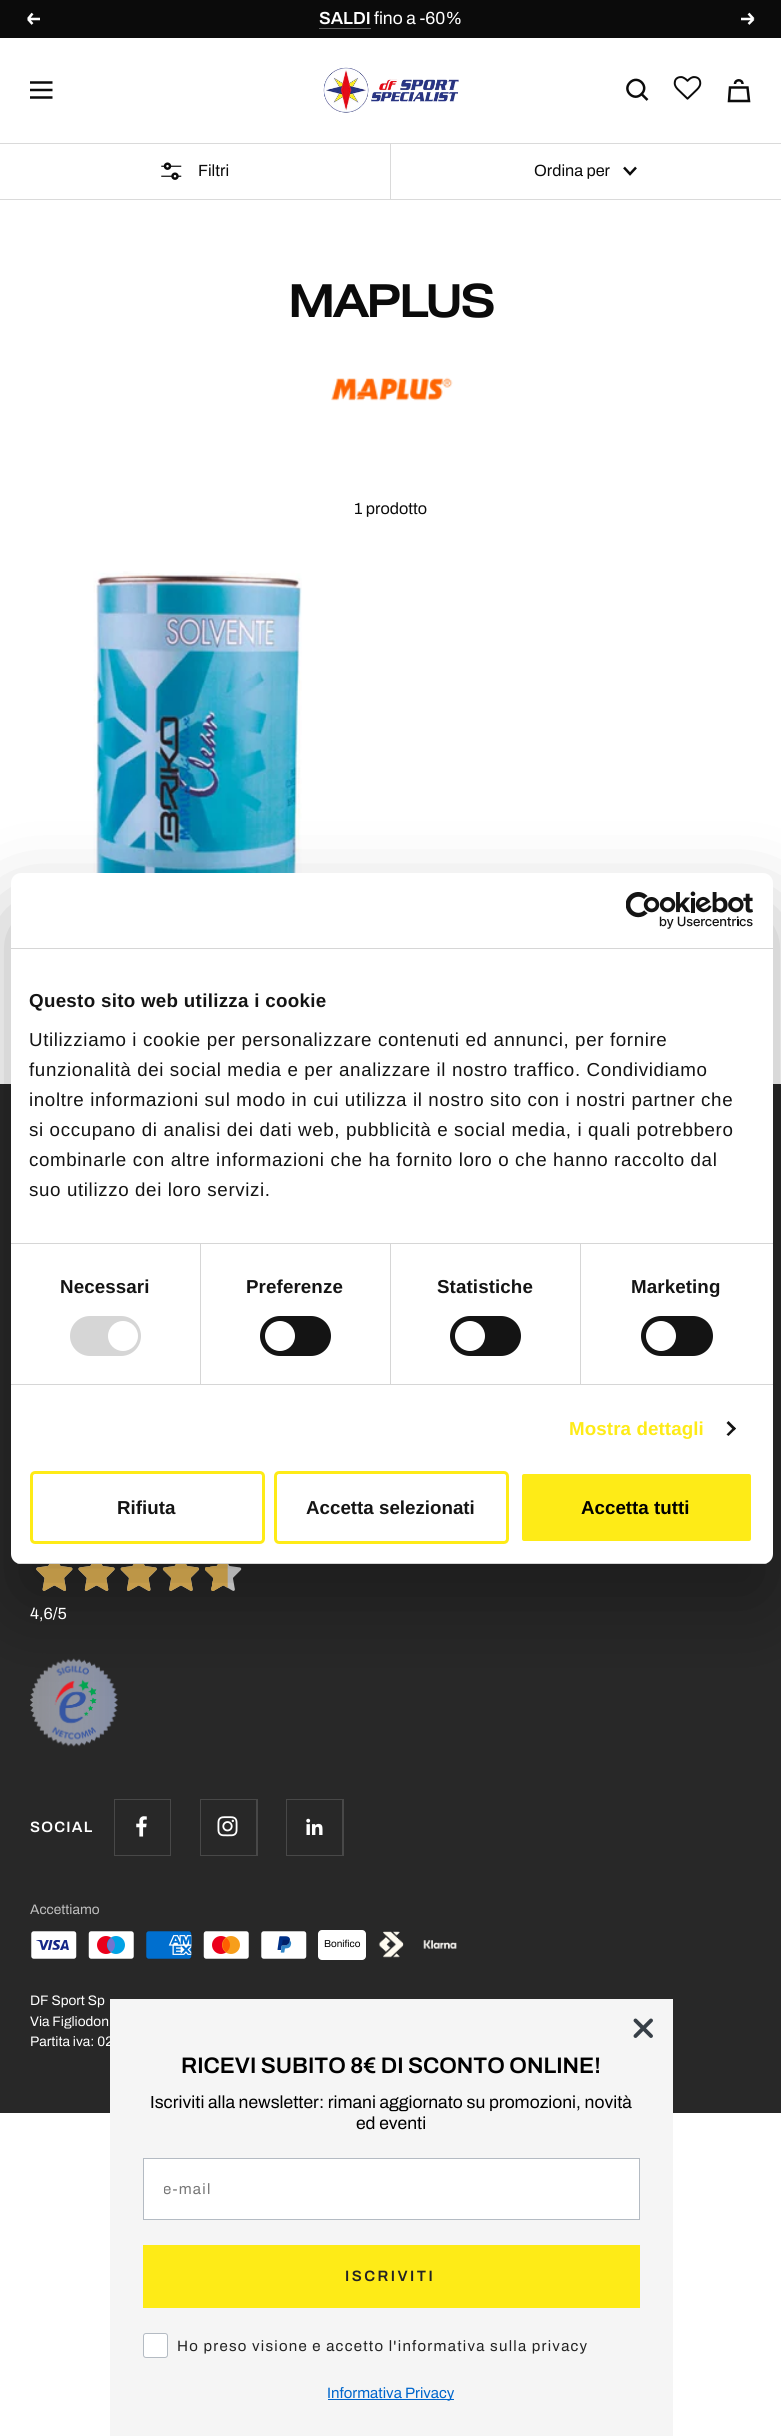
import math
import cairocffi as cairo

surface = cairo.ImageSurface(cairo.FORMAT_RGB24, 781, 2436)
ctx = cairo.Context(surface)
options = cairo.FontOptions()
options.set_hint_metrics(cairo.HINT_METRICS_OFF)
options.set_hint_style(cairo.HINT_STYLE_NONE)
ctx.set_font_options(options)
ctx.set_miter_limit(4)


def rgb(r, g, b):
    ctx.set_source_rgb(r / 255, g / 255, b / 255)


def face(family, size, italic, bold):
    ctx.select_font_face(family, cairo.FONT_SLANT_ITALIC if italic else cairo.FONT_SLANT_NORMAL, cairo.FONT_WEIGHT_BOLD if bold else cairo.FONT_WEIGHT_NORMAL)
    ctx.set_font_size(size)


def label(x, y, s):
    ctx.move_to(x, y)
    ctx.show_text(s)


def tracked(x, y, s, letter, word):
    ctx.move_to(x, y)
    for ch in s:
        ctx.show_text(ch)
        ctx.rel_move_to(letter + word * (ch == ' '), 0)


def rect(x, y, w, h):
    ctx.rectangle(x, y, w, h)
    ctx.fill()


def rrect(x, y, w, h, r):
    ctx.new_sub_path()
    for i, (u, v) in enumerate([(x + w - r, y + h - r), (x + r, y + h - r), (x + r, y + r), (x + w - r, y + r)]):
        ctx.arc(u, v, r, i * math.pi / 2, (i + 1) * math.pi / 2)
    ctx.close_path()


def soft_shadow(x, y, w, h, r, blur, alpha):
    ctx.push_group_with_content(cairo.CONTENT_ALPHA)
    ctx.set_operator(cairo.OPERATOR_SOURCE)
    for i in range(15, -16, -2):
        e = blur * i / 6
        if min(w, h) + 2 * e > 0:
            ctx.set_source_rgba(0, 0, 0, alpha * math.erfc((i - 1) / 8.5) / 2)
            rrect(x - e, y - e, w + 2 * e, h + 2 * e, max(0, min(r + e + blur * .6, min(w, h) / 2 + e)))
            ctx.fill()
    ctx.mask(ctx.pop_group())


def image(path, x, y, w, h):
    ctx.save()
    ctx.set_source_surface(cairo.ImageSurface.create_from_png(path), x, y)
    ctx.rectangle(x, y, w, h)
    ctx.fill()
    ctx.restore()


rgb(255, 255, 255)
ctx.paint()
rgb(11, 11, 11)
rect(0, 0, 781, 38)
ctx.new_path()
ctx.move_to(40, 19)
ctx.line_to(28, 19)
ctx.move_to(28, 19)
ctx.line_to(32.5, 24)
ctx.move_to(28, 19)
ctx.line_to(32.5, 13.5)
rgb(255, 255, 255)
ctx.set_line_width(2.5)
ctx.stroke()
face('Archivo SemiBold', 17.5, 0, 0)
label(319, 24, 'SALDI')
rgb(96, 96, 96)
rect(319, 28, 52, 1)
face('Archivo', 17.5, 0, 0)
rgb(255, 255, 255)
label(374, 24, 'fino a -60%')
ctx.new_path()
ctx.move_to(741, 19)
ctx.line_to(753.5, 19)
ctx.move_to(753.5, 19)
ctx.line_to(748.5, 24)
ctx.move_to(753.5, 19)
ctx.line_to(748.5, 13.5)
ctx.stroke()
rgb(218, 218, 218)
rect(0, 199, 781, 1)
rect(390, 143, 1, 57)
rect(0, 143, 781, 1)
ctx.new_path()
ctx.move_to(30, 82.5)
ctx.line_to(52.5, 82.5)
ctx.move_to(30, 97.5)
ctx.line_to(52.5, 97.5)
ctx.close_path()
ctx.move_to(30, 90)
ctx.line_to(52.5, 90)
ctx.close_path()
rgb(11, 11, 11)
ctx.stroke()
image('image0.png', 323, 67, 136, 46)
ctx.new_path()
ctx.move_to(641.5, 94)
ctx.curve_to(649.5, 86.5, 638, 74.5, 630, 82.5)
ctx.curve_to(622, 90.5, 634, 102, 641.5, 94)
ctx.close_path()
ctx.move_to(641.5, 94)
ctx.line_to(647.5, 100)
ctx.stroke()
image('image1.png', 673, 76, 29, 24)
ctx.new_path()
ctx.move_to(730, 87.5)
ctx.line_to(747.5, 87.5)
ctx.line_to(749, 101)
ctx.line_to(729, 101)
ctx.close_path()
ctx.move_to(742.5, 84)
ctx.curve_to(742.5, 79, 735, 79, 735, 84)
ctx.stroke()
image('image2.png', 161, 162, 21, 18)
face('Archivo', 16.25, 0, 0)
label(198, 176, 'Filtri')
label(534, 176, 'Ordina per')
ctx.new_path()
ctx.move_to(624, 167.5)
ctx.line_to(630, 174)
ctx.line_to(636, 167.5)
ctx.stroke()
face('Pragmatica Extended', 45, 0, 1)
tracked(288, 317, 'MAPLUS', -1, 0)
image('image3.png', 331, 377, 122, 24)
face('Archivo', 16.25, 0, 0)
label(354, 514, '1 prodotto')
image('image4.png', 93, 571, 209, 302)
rgb(40, 40, 40)
rect(0, 1084, 781, 1029)
image('image6.png', 36, 1564, 206, 27)
image('image7.png', 30, 1658, 88, 89)
rgb(0, 0, 0)
soft_shadow(11, 913, 762, 691, 10, 42.5, 0.3)
rgb(255, 255, 255)
rrect(11, 873, 762, 691, 10)
ctx.fill()
rgb(214, 214, 214)
rect(11, 948, 762, 1)
image('image5.png', 626, 891, 127, 38)
rect(11, 1243, 762, 1)
face('Liberation Sans', 18.75, 0, 1)
rgb(20, 20, 20)
tracked(29, 1007, 'Questo sito web utilizza i cookie', 0.3, 0)
face('Liberation Sans', 18.75, 0, 0)
tracked(29, 1046, 'Utilizziamo i cookie per personalizzare contenuti ed annunci, per fornire', 0.62, 0)
tracked(29, 1076, 'funzionalità dei social media e per analizzare il nostro traffico. Condividiamo', 0.62, 0)
tracked(29, 1106, 'inoltre informazioni sul modo in cui utilizza il nostro sito con i nostri partner che', 0.62, 0)
tracked(29, 1136, 'si occupano di analisi dei dati web, pubblicità e social media, i quali potrebbero', 0.62, 0)
tracked(29, 1166, 'combinarle con altre informazioni che ha fornito loro o che hanno raccolto dal', 0.62, 0)
tracked(29, 1196, 'suo utilizzo dei loro servizi.', 0.62, 0)
rgb(214, 214, 214)
rect(11, 1384, 762, 1)
rect(200, 1244, 1, 140)
face('Liberation Sans', 18.75, 0, 1)
rgb(20, 20, 20)
tracked(60, 1293, 'Necessari', 0.1, 0)
rgb(214, 214, 214)
rrect(70, 1316, 71, 40, 20)
ctx.fill()
rgb(255, 255, 255)
ctx.arc(123, 1336, 15, 0, 2 * math.pi)
ctx.fill()
rgb(214, 214, 214)
rect(390, 1244, 1, 140)
rgb(20, 20, 20)
tracked(246, 1293, 'Preferenze', 0.1, 0)
rrect(260, 1316, 71, 40, 20)
ctx.fill()
rgb(255, 255, 255)
ctx.arc(280, 1336, 15, 0, 2 * math.pi)
ctx.fill()
rgb(214, 214, 214)
rect(580, 1244, 1, 140)
rgb(20, 20, 20)
tracked(437, 1293, 'Statistiche', 0.1, 0)
rrect(450, 1316, 71, 40, 20)
ctx.fill()
rgb(255, 255, 255)
ctx.arc(470, 1336, 15, 0, 2 * math.pi)
ctx.fill()
rgb(20, 20, 20)
tracked(631, 1293, 'Marketing', 0.1, 0)
rrect(641, 1316, 72, 40, 20)
ctx.fill()
rgb(255, 255, 255)
ctx.arc(661, 1336, 15, 0, 2 * math.pi)
ctx.fill()
rgb(254, 235, 23)
tracked(569, 1435, 'Mostra dettagli', 0.1, 0)
rgb(20, 20, 20)
ctx.new_path()
ctx.move_to(728.5, 1421)
ctx.line_to(736, 1428.5)
ctx.line_to(734, 1430.5)
ctx.line_to(726.5, 1423)
ctx.close_path()
ctx.fill()
ctx.new_path()
ctx.move_to(734, 1427)
ctx.line_to(736, 1428.5)
ctx.line_to(728.5, 1436)
ctx.line_to(726.5, 1434.5)
ctx.close_path()
ctx.fill()
ctx.save()
rrect(11, 873, 762, 691, 10)
ctx.clip()
rgb(214, 214, 214)
rect(11, 1563, 762, 1)
ctx.restore()
rrect(31.5, 1472.5, 232, 70, 3.5)
rgb(254, 235, 23)
ctx.set_line_width(3)
ctx.stroke()
rgb(20, 20, 20)
label(117, 1514, 'Rifiuta')
rrect(275.5, 1472.5, 232, 70, 3.5)
rgb(254, 235, 23)
ctx.stroke()
rgb(20, 20, 20)
label(306, 1514, 'Accetta selezionati')
rgb(254, 235, 23)
rrect(520.5, 1472.5, 232, 70, 3.5)
ctx.fill_preserve()
rgb(255, 255, 255)
ctx.stroke()
rgb(0, 0, 0)
label(581, 1514, 'Accetta tutti')
face('Archivo', 16.25, 0, 0)
rgb(255, 255, 255)
label(30, 1619, '4,6/5')
face('Archivo SemiBold', 15, 0, 0)
tracked(30, 1832, 'SOCIAL', 1.25, 0)
rgb(72, 72, 72)
ctx.new_path()
ctx.move_to(115, 1855)
ctx.line_to(115, 1856)
ctx.line_to(171, 1856)
ctx.line_to(171, 1800)
ctx.line_to(170, 1800)
ctx.line_to(170, 1855)
ctx.close_path()
ctx.fill()
rect(114, 1855, 1, 1)
rect(114, 1799, 57, 1)
rect(114, 1799, 1, 56)
image('image8.png', 136, 1816, 11, 21)
ctx.new_path()
ctx.move_to(201, 1855)
ctx.line_to(201, 1856)
ctx.line_to(258, 1856)
ctx.line_to(258, 1800)
ctx.line_to(256, 1800)
ctx.line_to(256, 1855)
ctx.close_path()
ctx.fill()
rect(200, 1855, 1, 1)
rect(200, 1799, 58, 1)
rect(200, 1799, 1, 56)
image('image9.png', 217, 1816, 21, 21)
ctx.new_path()
ctx.move_to(288, 1855)
ctx.line_to(288, 1856)
ctx.line_to(344, 1856)
ctx.line_to(344, 1800)
ctx.line_to(342, 1800)
ctx.line_to(342, 1855)
ctx.close_path()
ctx.fill()
ctx.new_path()
ctx.move_to(286, 1800)
ctx.line_to(286, 1856)
ctx.line_to(343, 1856)
ctx.line_to(343, 1800)
ctx.line_to(342, 1800)
ctx.line_to(342, 1855)
ctx.line_to(286, 1855)
ctx.close_path()
ctx.fill()
rect(286, 1799, 58, 1)
rect(286, 1799, 1, 56)
image('image10.png', 306, 1818, 17, 17)
face('Archivo', 13.75, 0, 0)
rgb(191, 191, 191)
label(30, 1914, 'Accettiamo')
image('image11.png', 31, 1931, 46, 28)
image('image12.png', 88, 1931, 46, 28)
image('image13.png', 146, 1931, 46, 28)
image('image14.png', 203, 1931, 46, 28)
image('image15.png', 261, 1931, 46, 28)
rgb(255, 255, 255)
rrect(318, 1930, 48, 30, 4)
ctx.fill()
face('Archivo', 10, 0, 0)
rgb(0, 0, 0)
label(324, 1947, 'Bonifico')
image('image16.png', 378, 1931, 26, 27)
image('image17.png', 423, 1940, 34, 9)
face('Archivo', 13.75, 0, 0)
rgb(255, 255, 255)
label(30, 2005, 'DF Sport Sp')
label(30, 2026, 'Via Figliodon')
label(30, 2046, 'Partita iva: 02')
rgb(245, 245, 245)
rect(110, 1999, 563, 437)
ctx.new_path()
ctx.move_to(635.5, 2020.5)
ctx.line_to(651, 2036)
ctx.move_to(635.5, 2036)
ctx.line_to(651, 2020.5)
ctx.close_path()
rgb(55, 63, 71)
ctx.set_line_width(3.9)
ctx.set_line_cap(cairo.LINE_CAP_ROUND)
ctx.set_line_join(cairo.LINE_JOIN_ROUND)
ctx.stroke()
face('Archivo SemiBold', 22.5, 0, 0)
rgb(0, 0, 0)
label(181, 2073, 'RICEVI SUBITO 8€ DI SCONTO ONLINE!')
face('Archivo', 17.5, 0, 0)
label(150, 2108, 'Iscriviti alla newsletter: rimani aggiornato su promozioni, novità')
label(356, 2129, 'ed eventi')
rgb(255, 255, 255)
ctx.rectangle(143.5, 2158.5, 496, 61)
ctx.fill_preserve()
rgb(180, 187, 195)
ctx.set_line_width(1)
ctx.set_line_cap(cairo.LINE_CAP_BUTT)
ctx.set_line_join(cairo.LINE_JOIN_MITER)
ctx.stroke()
ctx.save()
ctx.rectangle(164, 2180, 475, 18)
ctx.clip()
face('Archivo', 15, 0, 0)
rgb(118, 118, 118)
tracked(163, 2194, 'e-mail', 1.25, 0)
ctx.restore()
rgb(254, 235, 23)
rect(143, 2245, 497, 63)
face('Archivo SemiBold', 15, 0, 0)
rgb(35, 35, 35)
tracked(345, 2281, 'ISCRIVITI', 2.5, 0)
rgb(255, 255, 255)
rrect(143.5, 2333.5, 24, 24, 2.5)
ctx.fill_preserve()
rgb(180, 187, 195)
ctx.stroke()
face('Archivo', 15, 0, 0)
rgb(35, 35, 35)
tracked(177, 2351, 'Ho preso visione e accetto l\'informativa sulla privacy', 1.25, 0)
rgb(0, 102, 204)
rect(328, 2399, 126, 1)
label(327, 2398, 'Informativa Privacy')
surface.write_to_png('render.png')
